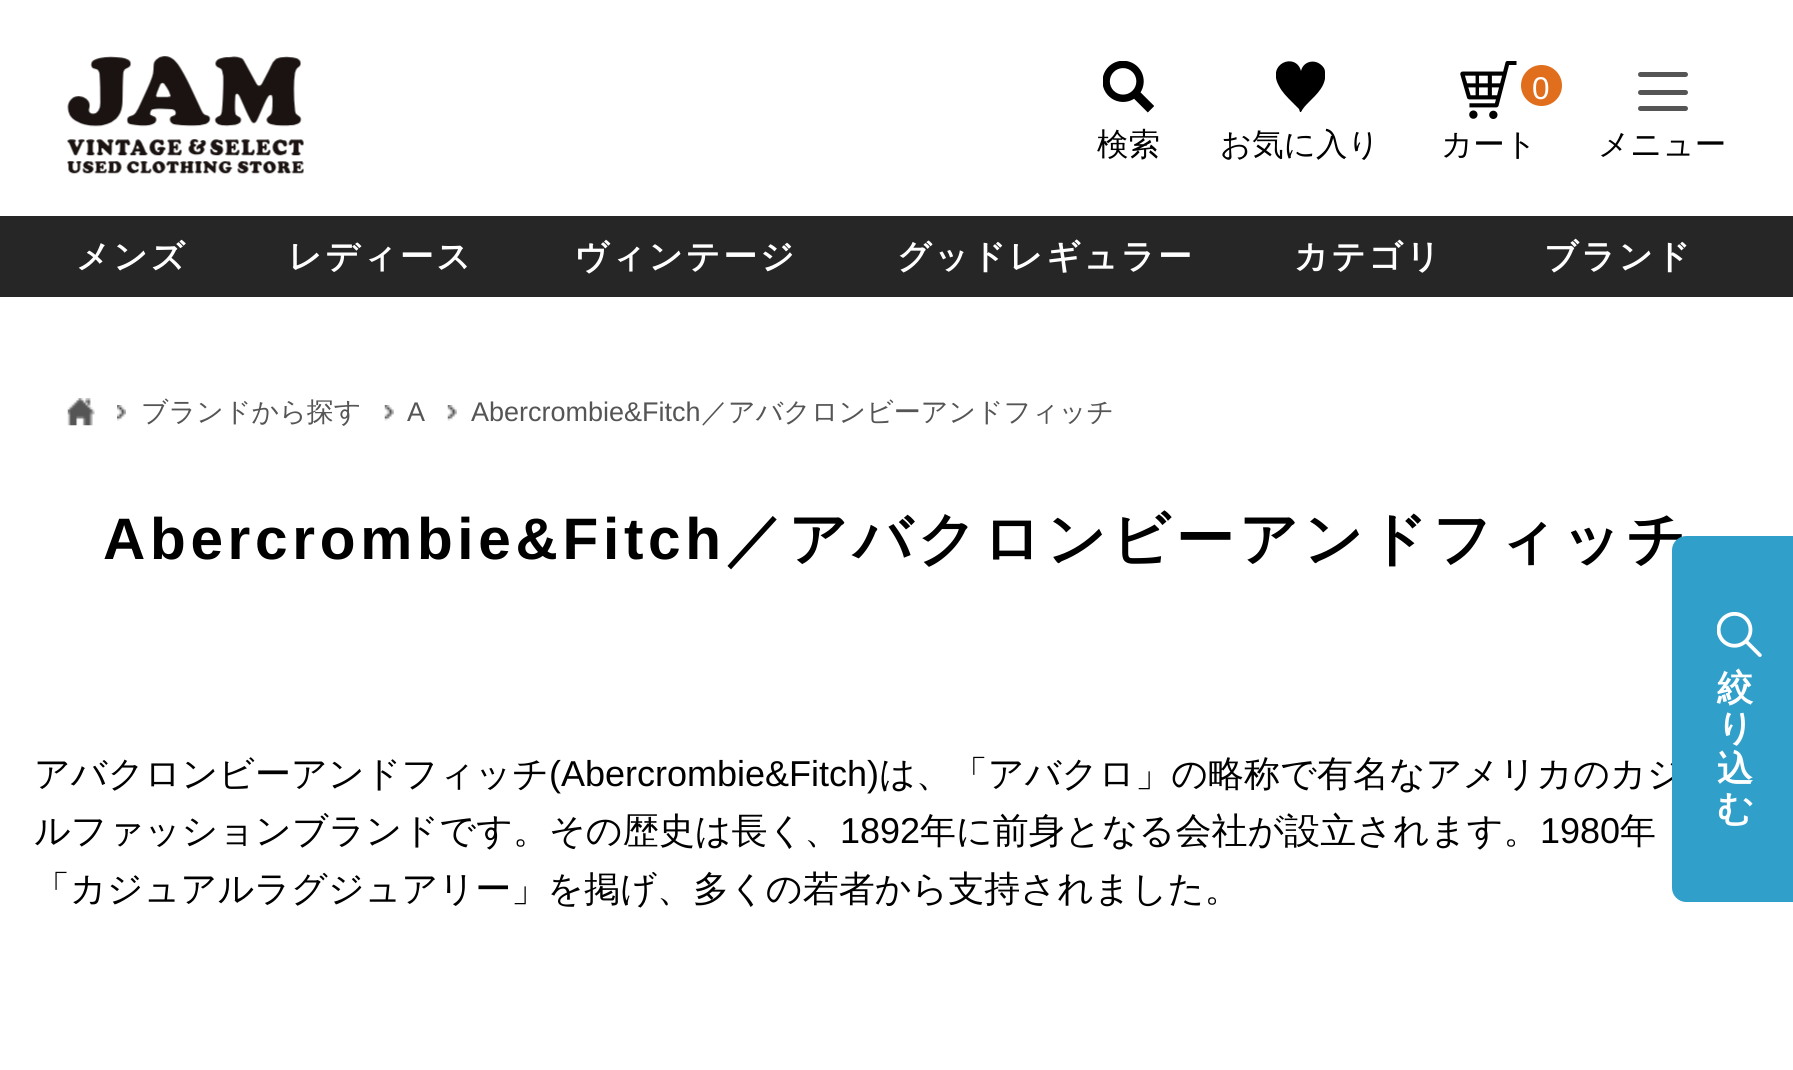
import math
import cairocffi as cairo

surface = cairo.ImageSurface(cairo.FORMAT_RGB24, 1793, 1070)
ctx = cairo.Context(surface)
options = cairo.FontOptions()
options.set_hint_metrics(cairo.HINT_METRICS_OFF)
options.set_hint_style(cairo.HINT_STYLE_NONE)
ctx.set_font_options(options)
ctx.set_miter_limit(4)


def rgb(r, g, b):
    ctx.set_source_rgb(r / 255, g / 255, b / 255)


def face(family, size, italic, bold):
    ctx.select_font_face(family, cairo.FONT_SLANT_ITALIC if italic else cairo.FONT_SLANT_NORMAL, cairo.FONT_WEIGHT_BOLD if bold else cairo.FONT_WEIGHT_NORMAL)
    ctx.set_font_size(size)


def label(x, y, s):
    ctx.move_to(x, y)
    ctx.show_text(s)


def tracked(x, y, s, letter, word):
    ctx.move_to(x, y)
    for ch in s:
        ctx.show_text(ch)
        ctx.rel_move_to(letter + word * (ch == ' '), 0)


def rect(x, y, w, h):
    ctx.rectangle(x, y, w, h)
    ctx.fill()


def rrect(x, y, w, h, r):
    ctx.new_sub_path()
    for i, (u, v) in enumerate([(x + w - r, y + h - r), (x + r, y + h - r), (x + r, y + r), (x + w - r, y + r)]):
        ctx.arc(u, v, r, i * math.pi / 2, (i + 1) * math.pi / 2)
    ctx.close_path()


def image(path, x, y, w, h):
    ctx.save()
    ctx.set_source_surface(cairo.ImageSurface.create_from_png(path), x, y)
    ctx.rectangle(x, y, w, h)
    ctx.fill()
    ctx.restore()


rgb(255, 255, 255)
ctx.paint()
image('image0.png', 67, 56, 237, 118)
image('image1.png', 1103, 61, 51, 52)
face('WenQuanYi Zen Hei Medium', 31.5, 0, 0)
rgb(0, 0, 0)
label(1097, 155, '検索')
ctx.save()
ctx.rectangle(1276, 61, 49, 52)
ctx.clip()
ctx.new_path()
ctx.move_to(1320, 64)
ctx.curve_to(1313, 59, 1303, 62, 1301, 71)
ctx.curve_to(1296, 52, 1266, 63, 1279, 86)
ctx.curve_to(1282, 92, 1287, 97, 1292, 102)
ctx.line_to(1299, 109)
ctx.line_to(1300, 112)
ctx.line_to(1301, 112)
ctx.curve_to(1303, 108, 1306, 105, 1309, 102)
ctx.curve_to(1317, 94, 1327, 85, 1325, 72)
ctx.curve_to(1325, 69, 1323, 66, 1320, 64)
ctx.close_path()
ctx.fill()
ctx.restore()
label(1220, 155, 'お気に入り')
image('image2.png', 1460, 61, 57, 58)
rgb(224, 110, 29)
ctx.arc(1541.5, 85.5, 20.5, 0, 2 * math.pi)
ctx.fill()
face('Liberation Sans', 31.5, 0, 0)
rgb(255, 255, 255)
label(1532, 99, '0')
face('WenQuanYi Zen Hei Medium', 31.5, 0, 0)
rgb(0, 0, 0)
label(1441, 155, 'カート')
rgb(85, 85, 85)
rrect(1638, 72, 50, 5, 2.5)
ctx.fill()
rrect(1638, 90, 50, 5, 2.5)
ctx.fill()
rrect(1638, 106, 50, 5, 2.5)
ctx.fill()
rgb(0, 0, 0)
label(1598, 155, 'メニュー')
rgb(38, 38, 38)
rect(0, 216, 1793, 81)
face('WenQuanYi Zen Hei', 33.75, 0, 1)
rgb(255, 255, 255)
tracked(76, 268, 'メンズ', 2.75, 0)
tracked(288, 268, 'レディース', 2.75, 0)
tracked(574, 268, 'ヴィンテージ', 2.75, 0)
tracked(897, 268, 'グッドレギュラー', 2.75, 0)
tracked(1294, 268, 'カテゴリ', 2.75, 0)
tracked(1544, 268, 'ブランド', 2.75, 0)
image('image3.png', 67, 398, 28, 28)
image('image4.png', 117, 405, 9, 16)
face('WenQuanYi Zen Hei Medium', 27, 0, 0)
rgb(85, 85, 85)
label(141, 421, 'ブランドから探す')
image('image5.png', 384, 405, 10, 16)
face('Liberation Sans', 27, 0, 0)
label(407, 421, 'A')
image('image6.png', 447, 405, 10, 16)
label(471, 421, 'Abercrombie&Fitch')
face('WenQuanYi Zen Hei Medium', 27, 0, 0)
label(701, 421, '／アバクロンビーアンドフィッチ')
face('Liberation Sans', 58.5, 0, 1)
rgb(0, 0, 0)
tracked(103, 559, 'Abercrombie&Fitch', 4.7, 0)
face('WenQuanYi Zen Hei', 58.5, 0, 1)
tracked(725, 559, '／アバクロンビーアンドフィッチ', 4.7, 0)
face('WenQuanYi Zen Hei Medium', 36, 0, 0)
label(34, 786, 'アバクロンビーアンドフィッチ')
face('Liberation Sans', 36, 0, 0)
label(549, 786, '(Abercrombie&Fitch)')
face('WenQuanYi Zen Hei Medium', 36, 0, 0)
label(879, 786, 'は、「アバクロ」の略称で有名なアメリカのカジ')
label(34, 843, 'ルファッションブランドです。その歴史は長く、')
face('Liberation Sans', 36, 0, 0)
label(840, 843, '1892')
face('WenQuanYi Zen Hei Medium', 36, 0, 0)
label(920, 843, '年に前身となる会社が設立されます。')
face('Liberation Sans', 36, 0, 0)
label(1540, 843, '1980')
face('WenQuanYi Zen Hei Medium', 36, 0, 0)
label(1620, 843, '年')
label(34, 901, '「カジュアルラグジュアリー」を掲げ、多くの若者から支持されました。')
rgb(48, 160, 203)
ctx.new_path()
ctx.move_to(1686, 536)
ctx.line_to(1793, 536)
ctx.line_to(1793, 902)
ctx.line_to(1686, 902)
ctx.curve_to(1678.5, 902, 1672, 895.5, 1672, 888)
ctx.line_to(1672, 550)
ctx.curve_to(1672, 542.5, 1678.5, 536, 1686, 536)
ctx.close_path()
ctx.fill()
image('image7.png', 1717, 612, 45, 45)
face('WenQuanYi Zen Hei', 36, 0, 1)
rgb(255, 255, 255)
label(1717, 700, '絞')
label(1717, 740, 'り')
label(1717, 781, '込')
label(1717, 821, 'む')
surface.write_to_png('render.png')
